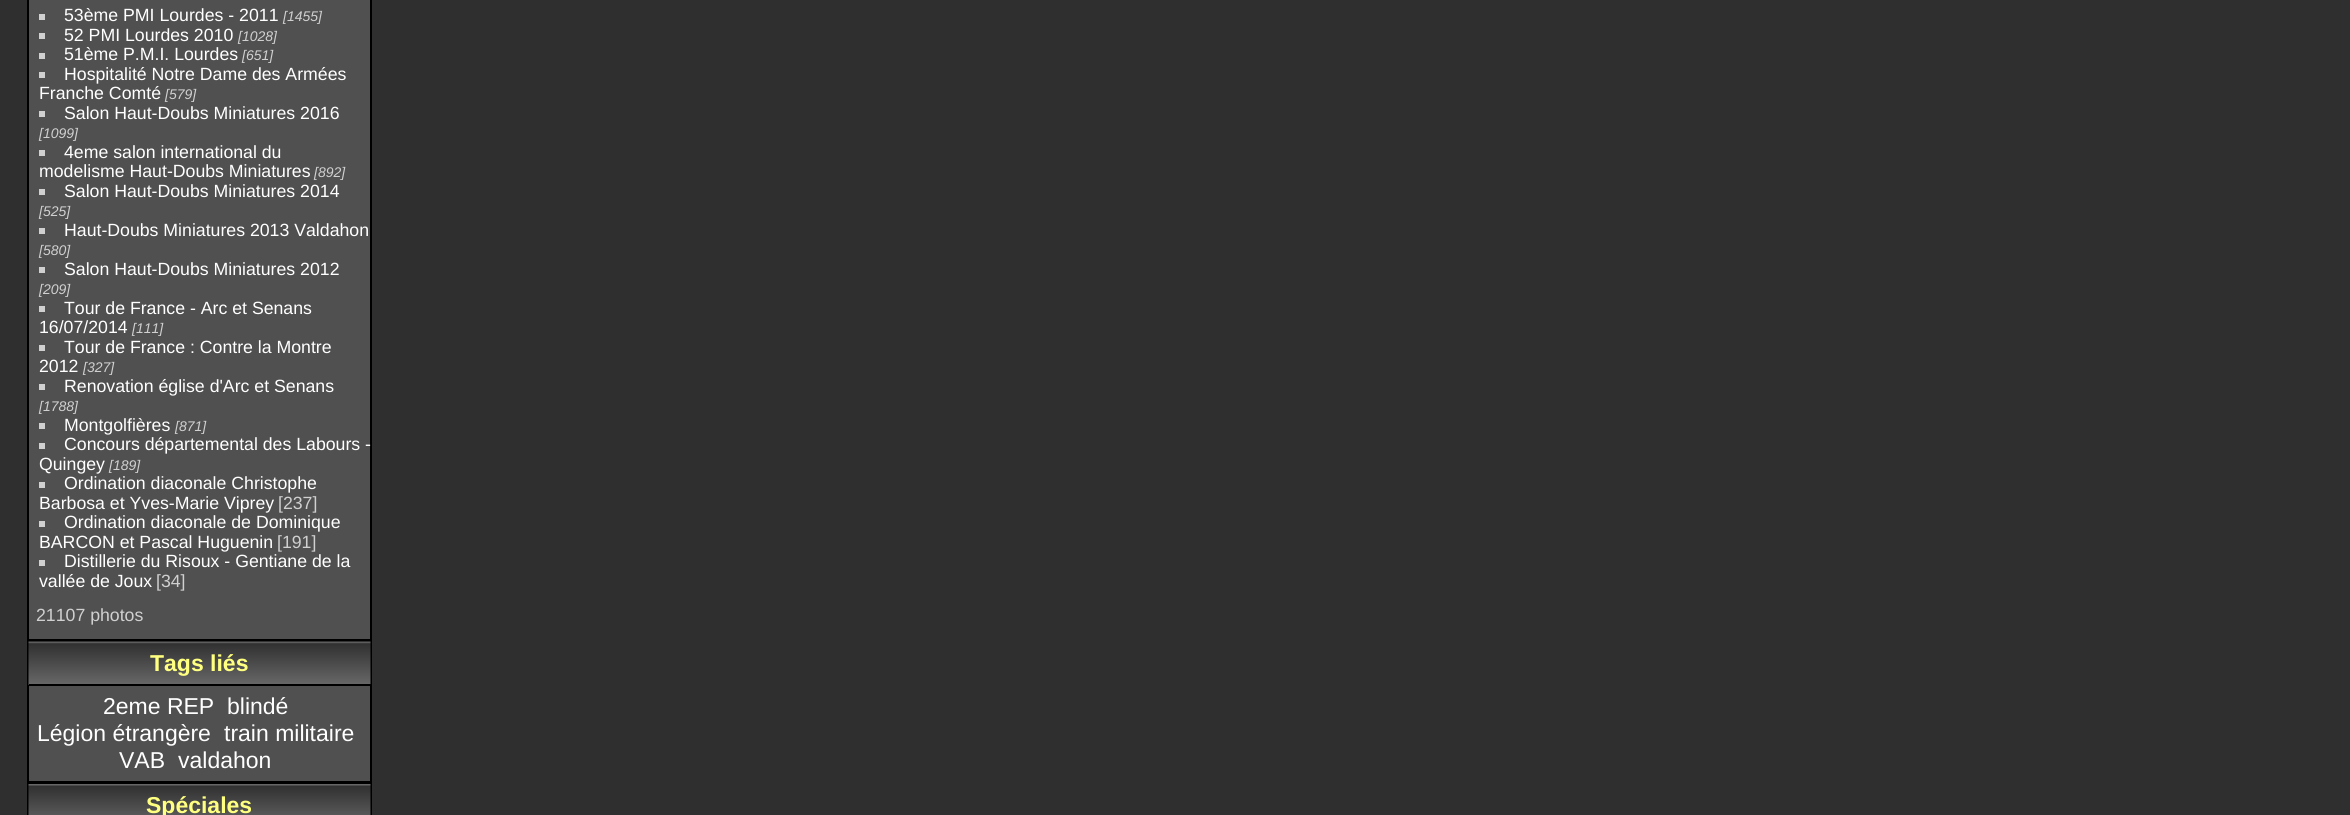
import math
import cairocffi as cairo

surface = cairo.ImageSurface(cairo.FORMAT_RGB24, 2350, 815)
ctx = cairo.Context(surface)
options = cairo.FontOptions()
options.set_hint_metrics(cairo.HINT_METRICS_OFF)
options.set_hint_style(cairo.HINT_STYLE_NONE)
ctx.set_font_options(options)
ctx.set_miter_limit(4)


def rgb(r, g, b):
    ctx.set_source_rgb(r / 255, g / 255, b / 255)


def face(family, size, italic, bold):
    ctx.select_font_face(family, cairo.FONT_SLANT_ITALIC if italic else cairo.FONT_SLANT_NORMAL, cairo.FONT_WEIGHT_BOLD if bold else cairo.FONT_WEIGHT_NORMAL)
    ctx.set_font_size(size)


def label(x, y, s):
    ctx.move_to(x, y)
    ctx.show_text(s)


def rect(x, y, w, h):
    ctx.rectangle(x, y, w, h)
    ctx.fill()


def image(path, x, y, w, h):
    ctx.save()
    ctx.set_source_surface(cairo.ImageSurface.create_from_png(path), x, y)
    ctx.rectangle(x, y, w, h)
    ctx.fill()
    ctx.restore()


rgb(47, 47, 47)
ctx.paint()
rgb(80, 80, 80)
ctx.rectangle(28, -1, 343, 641)
ctx.fill_preserve()
rgb(0, 0, 0)
ctx.stroke()
rgb(208, 208, 208)
rect(39, 14, 6, 6)
face('Liberation Sans', 17.7, 0, 0)
rgb(255, 255, 255)
label(64, 21, '53ème PMI Lourdes - 2011')
face('Liberation Sans', 14, 1, 0)
rgb(208, 208, 208)
label(283, 21, '[1455]')
rect(39, 33, 6, 6)
face('Liberation Sans', 17.7, 0, 0)
rgb(255, 255, 255)
label(64, 41, '52 PMI Lourdes 2010')
face('Liberation Sans', 14, 1, 0)
rgb(208, 208, 208)
label(238, 41, '[1028]')
rect(39, 53, 6, 6)
face('Liberation Sans', 17.7, 0, 0)
rgb(255, 255, 255)
label(64, 60, '51ème P.M.I. Lourdes')
face('Liberation Sans', 14, 1, 0)
rgb(208, 208, 208)
label(242, 60, '[651]')
rect(39, 72, 6, 6)
face('Liberation Sans', 17.7, 0, 0)
rgb(255, 255, 255)
label(64, 80, 'Hospitalité Notre Dame des Armées')
label(39, 99, 'Franche Comté')
face('Liberation Sans', 14, 1, 0)
rgb(208, 208, 208)
label(165, 99, '[579]')
rect(39, 111, 6, 6)
face('Liberation Sans', 17.7, 0, 0)
rgb(255, 255, 255)
label(64, 119, 'Salon Haut-Doubs Miniatures 2016')
face('Liberation Sans', 14, 1, 0)
rgb(208, 208, 208)
label(39, 138, '[1099]')
rect(39, 150, 6, 6)
face('Liberation Sans', 17.7, 0, 0)
rgb(255, 255, 255)
label(64, 158, '4eme salon international du')
label(39, 177, 'modelisme Haut-Doubs Miniatures')
face('Liberation Sans', 14, 1, 0)
rgb(208, 208, 208)
label(314, 177, '[892]')
rect(39, 189, 6, 6)
face('Liberation Sans', 17.7, 0, 0)
rgb(255, 255, 255)
label(64, 197, 'Salon Haut-Doubs Miniatures 2014')
face('Liberation Sans', 14, 1, 0)
rgb(208, 208, 208)
label(39, 216, '[525]')
rect(39, 228, 6, 6)
face('Liberation Sans', 17.7, 0, 0)
rgb(255, 255, 255)
label(64, 236, 'Haut-Doubs Miniatures 2013 Valdahon')
face('Liberation Sans', 14, 1, 0)
rgb(208, 208, 208)
label(39, 255, '[580]')
rect(39, 267, 6, 6)
face('Liberation Sans', 17.7, 0, 0)
rgb(255, 255, 255)
label(64, 275, 'Salon Haut-Doubs Miniatures 2012')
face('Liberation Sans', 14, 1, 0)
rgb(208, 208, 208)
label(39, 294, '[209]')
rect(39, 306, 6, 6)
face('Liberation Sans', 17.7, 0, 0)
rgb(255, 255, 255)
label(64, 314, 'Tour de France - Arc et Senans')
label(39, 333, '16/07/2014')
face('Liberation Sans', 14, 1, 0)
rgb(208, 208, 208)
label(132, 333, '[111]')
rect(39, 345, 6, 6)
face('Liberation Sans', 17.7, 0, 0)
rgb(255, 255, 255)
label(64, 353, 'Tour de France : Contre la Montre')
label(39, 372, '2012')
face('Liberation Sans', 14, 1, 0)
rgb(208, 208, 208)
label(83, 372, '[327]')
rect(39, 384, 6, 6)
face('Liberation Sans', 17.7, 0, 0)
rgb(255, 255, 255)
label(64, 392, 'Renovation église d\'Arc et Senans')
face('Liberation Sans', 14, 1, 0)
rgb(208, 208, 208)
label(39, 411, '[1788]')
rect(39, 423, 6, 6)
face('Liberation Sans', 17.7, 0, 0)
rgb(255, 255, 255)
label(64, 431, 'Montgolfières')
face('Liberation Sans', 14, 1, 0)
rgb(208, 208, 208)
label(175, 431, '[871]')
rect(39, 443, 6, 6)
face('Liberation Sans', 17.7, 0, 0)
rgb(255, 255, 255)
label(64, 450, 'Concours départemental des Labours -')
label(39, 470, 'Quingey')
face('Liberation Sans', 14, 1, 0)
rgb(208, 208, 208)
label(109, 470, '[189]')
rect(39, 482, 6, 6)
face('Liberation Sans', 17.7, 0, 0)
rgb(255, 255, 255)
label(64, 489, 'Ordination diaconale Christophe')
label(39, 509, 'Barbosa et Yves-Marie Viprey')
rgb(208, 208, 208)
label(278, 509, '[237]')
rect(39, 521, 6, 6)
rgb(255, 255, 255)
label(64, 528, 'Ordination diaconale de Dominique')
label(39, 548, 'BARCON et Pascal Huguenin')
rgb(208, 208, 208)
label(277, 548, '[191]')
rect(39, 560, 6, 6)
rgb(255, 255, 255)
label(64, 567, 'Distillerie du Risoux - Gentiane de la')
label(39, 587, 'vallée de Joux')
rgb(208, 208, 208)
label(156, 587, '[34]')
label(36, 621, '21107 photos')
rgb(80, 80, 80)
rect(29, 686, 341, 95)
ctx.rectangle(28, 642, 343, 140)
rgb(0, 0, 0)
ctx.stroke()
image('image0.png', 28, 641, 343, 44)
rect(29, 684, 342, 2)
face('Liberation Sans', 23, 0, 1)
rgb(255, 255, 128)
label(150, 671, 'Tags liés')
face('Liberation Sans', 23, 0, 0)
rgb(255, 255, 255)
label(103, 714, '2eme REP')
label(227, 714, 'blindé')
label(37, 741, 'Légion étrangère')
label(224, 741, 'train militaire')
label(119, 768, 'VAB')
label(178, 768, 'valdahon')
ctx.rectangle(28, 784, 343, 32)
rgb(0, 0, 0)
ctx.stroke()
image('image1.png', 28, 784, 343, 31)
face('Liberation Sans', 23, 0, 1)
rgb(255, 255, 128)
label(146, 813, 'Spéciales')
surface.write_to_png('render.png')
